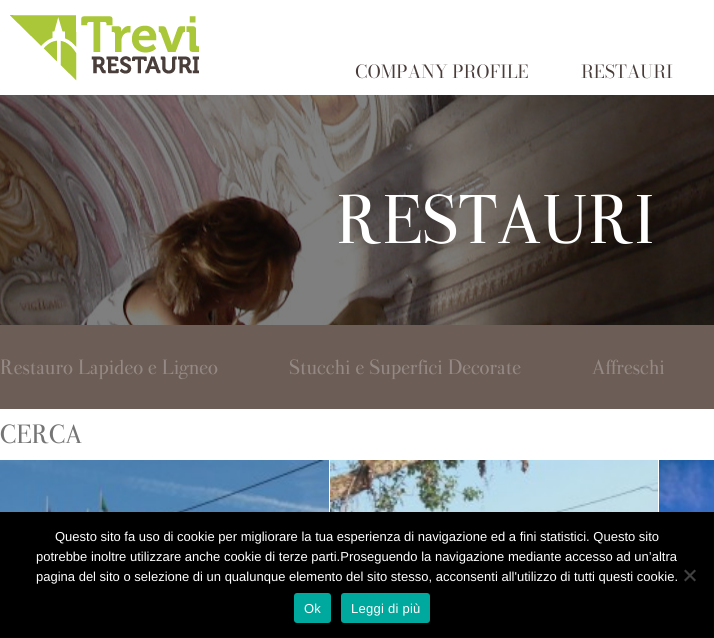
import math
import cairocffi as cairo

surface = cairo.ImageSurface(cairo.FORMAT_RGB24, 714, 638)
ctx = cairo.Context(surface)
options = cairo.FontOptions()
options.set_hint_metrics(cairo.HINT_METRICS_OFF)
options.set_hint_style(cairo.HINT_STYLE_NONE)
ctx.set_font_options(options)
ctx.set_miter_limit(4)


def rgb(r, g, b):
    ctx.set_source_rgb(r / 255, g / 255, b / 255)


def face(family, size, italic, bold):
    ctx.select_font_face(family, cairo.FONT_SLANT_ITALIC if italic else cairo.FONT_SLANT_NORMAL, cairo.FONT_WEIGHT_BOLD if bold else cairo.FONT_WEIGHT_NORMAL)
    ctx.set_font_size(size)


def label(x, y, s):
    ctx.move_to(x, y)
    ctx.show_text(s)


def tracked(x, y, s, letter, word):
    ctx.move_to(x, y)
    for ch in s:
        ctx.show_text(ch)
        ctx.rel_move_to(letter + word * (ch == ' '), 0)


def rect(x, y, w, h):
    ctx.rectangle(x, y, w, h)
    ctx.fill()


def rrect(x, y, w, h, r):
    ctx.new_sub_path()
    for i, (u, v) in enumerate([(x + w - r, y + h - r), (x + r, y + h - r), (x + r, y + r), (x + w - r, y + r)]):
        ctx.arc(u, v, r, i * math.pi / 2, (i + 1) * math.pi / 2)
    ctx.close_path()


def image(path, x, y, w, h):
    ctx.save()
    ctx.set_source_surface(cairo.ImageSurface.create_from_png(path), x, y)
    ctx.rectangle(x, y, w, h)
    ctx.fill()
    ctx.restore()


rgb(255, 255, 255)
ctx.paint()
image('image0.png', 0, 95, 714, 230)
image('image1.png', 10, 15, 189, 66)
face('Bodoni Moda', 18, 0, 0)
rgb(72, 60, 57)
label(355, 78, 'COMPANY PROFILE')
label(581, 78, 'RESTAURI')
ctx.set_source_rgba(0, 0, 0, 0.5)
rect(0, 95, 714, 230)
face('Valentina', 60, 0, 0)
rgb(255, 255, 255)
label(336, 243, 'RESTAURI')
rgb(108, 93, 86)
rect(0, 325, 714, 84)
face('Valentina', 18, 0, 0)
rgb(148, 137, 132)
label(0, 374, 'Restauro Lapideo e Ligneo')
label(289, 374, 'Stucchi e Superfici Decorate')
label(592, 374, 'Affreschi')
face('Valentina', 23, 0, 0)
rgb(117, 117, 117)
label(0, 443, 'CERCA')
image('image2.png', 0, 460, 329, 52)
image('image3.png', 330, 460, 328, 52)
image('image4.png', 659, 460, 55, 52)
rgb(0, 0, 0)
rect(0, 512, 714, 126)
face('Liberation Sans', 13, 0, 0)
rgb(255, 255, 255)
label(55, 541, 'Questo sito fa uso di cookie per migliorare la tua esperienza di navigazione ed a fini statistici. Questo sito')
label(36, 561, 'potrebbe inoltre utilizzare anche cookie di terze parti.Proseguendo la navigazione mediante accesso ad un’altra')
label(36, 581, 'pagina del sito o selezione di un qualunque elemento del sito stesso, acconsenti all\'utilizzo di tutti questi cookie.')
rgb(64, 64, 64)
ctx.new_path()
ctx.move_to(694.5, 569.5)
ctx.line_to(696, 571)
ctx.line_to(685.5, 581.5)
ctx.line_to(684, 580)
ctx.close_path()
ctx.fill()
ctx.new_path()
ctx.move_to(684, 571)
ctx.line_to(685.5, 569.5)
ctx.line_to(696, 580)
ctx.line_to(694.5, 581.5)
ctx.close_path()
ctx.fill()
rgb(0, 169, 157)
rrect(294, 593, 37, 30, 3)
ctx.fill()
rgb(255, 255, 255)
tracked(304, 613, 'Ok', 0.25, 0)
rgb(0, 169, 157)
rrect(341, 593, 89, 30, 3)
ctx.fill()
rgb(255, 255, 255)
tracked(351, 613, 'Leggi di più', 0.25, 0)
surface.write_to_png('render.png')
